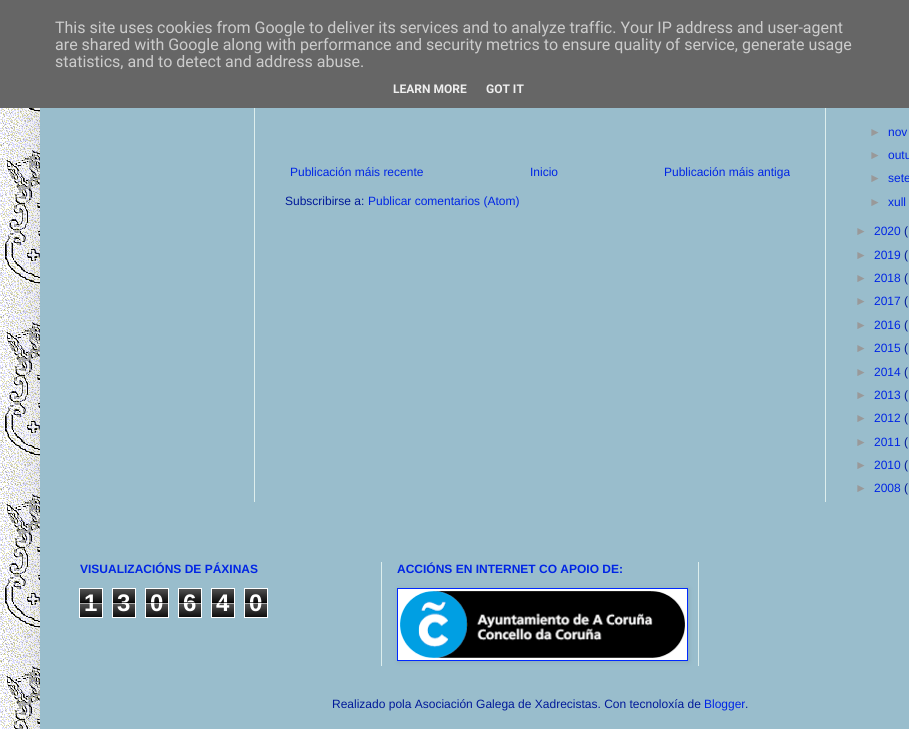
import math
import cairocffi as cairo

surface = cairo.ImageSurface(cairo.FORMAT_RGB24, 909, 729)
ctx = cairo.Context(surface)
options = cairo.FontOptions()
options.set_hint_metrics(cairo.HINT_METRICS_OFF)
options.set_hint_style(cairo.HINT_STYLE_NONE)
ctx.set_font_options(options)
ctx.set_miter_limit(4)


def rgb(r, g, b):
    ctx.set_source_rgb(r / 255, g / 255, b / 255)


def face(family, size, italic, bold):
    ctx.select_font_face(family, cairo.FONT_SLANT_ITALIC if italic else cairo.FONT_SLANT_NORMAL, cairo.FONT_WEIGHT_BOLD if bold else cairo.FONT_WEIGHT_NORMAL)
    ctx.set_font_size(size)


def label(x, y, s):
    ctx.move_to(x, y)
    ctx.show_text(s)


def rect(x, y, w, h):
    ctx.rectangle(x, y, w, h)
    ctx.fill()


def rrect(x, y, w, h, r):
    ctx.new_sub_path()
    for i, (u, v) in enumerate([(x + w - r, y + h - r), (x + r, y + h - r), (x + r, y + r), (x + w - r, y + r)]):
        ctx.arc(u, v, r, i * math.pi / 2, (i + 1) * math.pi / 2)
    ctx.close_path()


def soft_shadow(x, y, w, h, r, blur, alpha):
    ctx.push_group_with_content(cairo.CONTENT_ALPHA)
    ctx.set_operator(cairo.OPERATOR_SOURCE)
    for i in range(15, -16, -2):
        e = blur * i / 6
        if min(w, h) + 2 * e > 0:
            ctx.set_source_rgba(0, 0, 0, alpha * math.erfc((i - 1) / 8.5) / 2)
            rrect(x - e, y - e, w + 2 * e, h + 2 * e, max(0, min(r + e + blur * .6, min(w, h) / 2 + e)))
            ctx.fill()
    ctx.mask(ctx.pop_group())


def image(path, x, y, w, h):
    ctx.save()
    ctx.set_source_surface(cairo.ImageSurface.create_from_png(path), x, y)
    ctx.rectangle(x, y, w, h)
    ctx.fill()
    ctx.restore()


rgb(255, 255, 255)
ctx.paint()
image('image0.png', 0, 108, 40, 621)
rgb(0, 0, 0)
soft_shadow(40, -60, 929, 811, 0, 20, 0.15)
rgb(102, 102, 102)
rect(0, 0, 909, 108)
face('Roboto', 16, 0, 0)
rgb(204, 204, 204)
label(55, 33, 'This site uses cookies from Google to deliver its services and to analyze traffic. Your IP address and user-agent')
label(55, 50, 'are shared with Google along with performance and security metrics to ensure quality of service, generate usage')
label(55, 67, 'statistics, and to detect and address abuse.')
face('Roboto', 12, 0, 1)
rgb(238, 238, 238)
label(393, 93, 'LEARN MORE')
label(486, 93, 'GOT IT')
rgb(153, 189, 204)
rect(40, 108, 869, 621)
rgb(221, 238, 237)
rect(254, 108, 1, 394)
rect(825, 108, 1, 394)
face('Liberation Sans', 12, 0, 0)
rgb(0, 37, 229)
label(290, 176, 'Publicación máis recente')
label(530, 176, 'Inicio')
label(664, 176, 'Publicación máis antiga')
rgb(0, 25, 153)
label(285, 205, 'Subscribirse a:')
rgb(0, 37, 229)
label(368, 205, 'Publicar comentarios (Atom)')
rgb(153, 153, 153)
label(869, 136, '►')
rgb(0, 37, 229)
label(888, 136, 'nov')
rgb(153, 153, 153)
label(869, 159, '►')
rgb(0, 37, 229)
label(888, 159, 'outu')
rgb(153, 153, 153)
label(869, 182, '►')
rgb(0, 37, 229)
label(888, 182, 'sete')
rgb(153, 153, 153)
label(869, 206, '►')
rgb(0, 37, 229)
label(888, 206, 'xull')
rgb(153, 153, 153)
label(855, 235, '►')
rgb(0, 37, 229)
label(874, 235, '2020')
rgb(0, 25, 153)
label(904, 235, '(')
rgb(153, 153, 153)
label(855, 259, '►')
rgb(0, 37, 229)
label(874, 259, '2019')
rgb(0, 25, 153)
label(904, 259, '(')
rgb(153, 153, 153)
label(855, 282, '►')
rgb(0, 37, 229)
label(874, 282, '2018')
rgb(0, 25, 153)
label(904, 282, '(')
rgb(153, 153, 153)
label(855, 305, '►')
rgb(0, 37, 229)
label(874, 305, '2017')
rgb(0, 25, 153)
label(904, 305, '(')
rgb(153, 153, 153)
label(855, 329, '►')
rgb(0, 37, 229)
label(874, 329, '2016')
rgb(0, 25, 153)
label(904, 329, '(')
rgb(153, 153, 153)
label(855, 352, '►')
rgb(0, 37, 229)
label(874, 352, '2015')
rgb(0, 25, 153)
label(904, 352, '(')
rgb(153, 153, 153)
label(855, 376, '►')
rgb(0, 37, 229)
label(874, 376, '2014')
rgb(0, 25, 153)
label(904, 376, '(')
rgb(153, 153, 153)
label(855, 399, '►')
rgb(0, 37, 229)
label(874, 399, '2013')
rgb(0, 25, 153)
label(904, 399, '(')
rgb(153, 153, 153)
label(855, 422, '►')
rgb(0, 37, 229)
label(874, 422, '2012')
rgb(0, 25, 153)
label(904, 422, '(')
rgb(153, 153, 153)
label(855, 446, '►')
rgb(0, 37, 229)
label(874, 446, '2011')
rgb(0, 25, 153)
label(904, 446, '(')
rgb(153, 153, 153)
label(855, 469, '►')
rgb(0, 37, 229)
label(874, 469, '2010')
rgb(0, 25, 153)
label(904, 469, '(')
rgb(153, 153, 153)
label(855, 492, '►')
rgb(0, 37, 229)
label(874, 492, '2008')
rgb(0, 25, 153)
label(904, 492, '(')
face('Liberation Sans', 12, 0, 1)
rgb(0, 37, 229)
label(80, 573, 'VISUALIZACIÓNS DE PÁXINAS')
image('image1.png', 80, 589, 22, 28)
ctx.rectangle(79.5, 588.5, 23, 29)
rgb(255, 255, 255)
ctx.set_line_width(1)
ctx.stroke()
face('Liberation Sans', 24, 0, 1)
label(84, 611, '1')
ctx.set_source_rgba(0, 0, 0, 0.65)
rect(80, 602, 22, 1)
ctx.set_source_rgba(1, 1, 1, 0.65)
rect(80, 603, 22, 1)
image('image1.png', 113, 589, 22, 28)
ctx.rectangle(112.5, 588.5, 23, 29)
rgb(255, 255, 255)
ctx.stroke()
label(117, 611, '3')
ctx.set_source_rgba(0, 0, 0, 0.65)
rect(113, 602, 22, 1)
ctx.set_source_rgba(1, 1, 1, 0.65)
rect(113, 603, 22, 1)
image('image1.png', 146, 589, 22, 28)
ctx.rectangle(145.5, 588.5, 23, 29)
rgb(255, 255, 255)
ctx.stroke()
label(150, 611, '0')
ctx.set_source_rgba(0, 0, 0, 0.65)
rect(146, 602, 22, 1)
ctx.set_source_rgba(1, 1, 1, 0.65)
rect(146, 603, 22, 1)
image('image1.png', 179, 589, 22, 28)
ctx.rectangle(178.5, 588.5, 23, 29)
rgb(255, 255, 255)
ctx.stroke()
label(183, 611, '6')
ctx.set_source_rgba(0, 0, 0, 0.65)
rect(179, 602, 22, 1)
ctx.set_source_rgba(1, 1, 1, 0.65)
rect(179, 603, 22, 1)
image('image1.png', 212, 589, 22, 28)
ctx.rectangle(211.5, 588.5, 23, 29)
rgb(255, 255, 255)
ctx.stroke()
label(216, 611, '4')
ctx.set_source_rgba(0, 0, 0, 0.65)
rect(212, 602, 22, 1)
ctx.set_source_rgba(1, 1, 1, 0.65)
rect(212, 603, 22, 1)
image('image1.png', 245, 589, 22, 28)
ctx.rectangle(244.5, 588.5, 23, 29)
rgb(255, 255, 255)
ctx.stroke()
label(249, 611, '0')
ctx.set_source_rgba(0, 0, 0, 0.65)
rect(245, 602, 22, 1)
ctx.set_source_rgba(1, 1, 1, 0.65)
rect(245, 603, 22, 1)
rgb(221, 238, 237)
rect(381, 562, 1, 104)
face('Liberation Sans', 12, 0, 1)
rgb(0, 37, 229)
label(397, 573, 'ACCIÓNS EN INTERNET CO APOIO DE:')
rgb(0, 0, 0)
soft_shadow(398, 589, 291, 73, 0, 2.5, 0.1)
rgb(255, 255, 255)
ctx.rectangle(397.5, 588.5, 290, 72)
ctx.fill_preserve()
rgb(0, 41, 255)
ctx.stroke()
image('image2.png', 400, 591, 285, 67)
rgb(221, 238, 237)
rect(698, 562, 1, 104)
face('Liberation Sans', 12, 0, 0)
rgb(0, 25, 153)
label(332, 708, 'Realizado pola Asociación Galega de Xadrecistas. Con tecnoloxía de')
rgb(0, 37, 229)
label(704, 708, 'Blogger')
rgb(0, 25, 153)
label(745, 708, '.')
surface.write_to_png('render.png')
